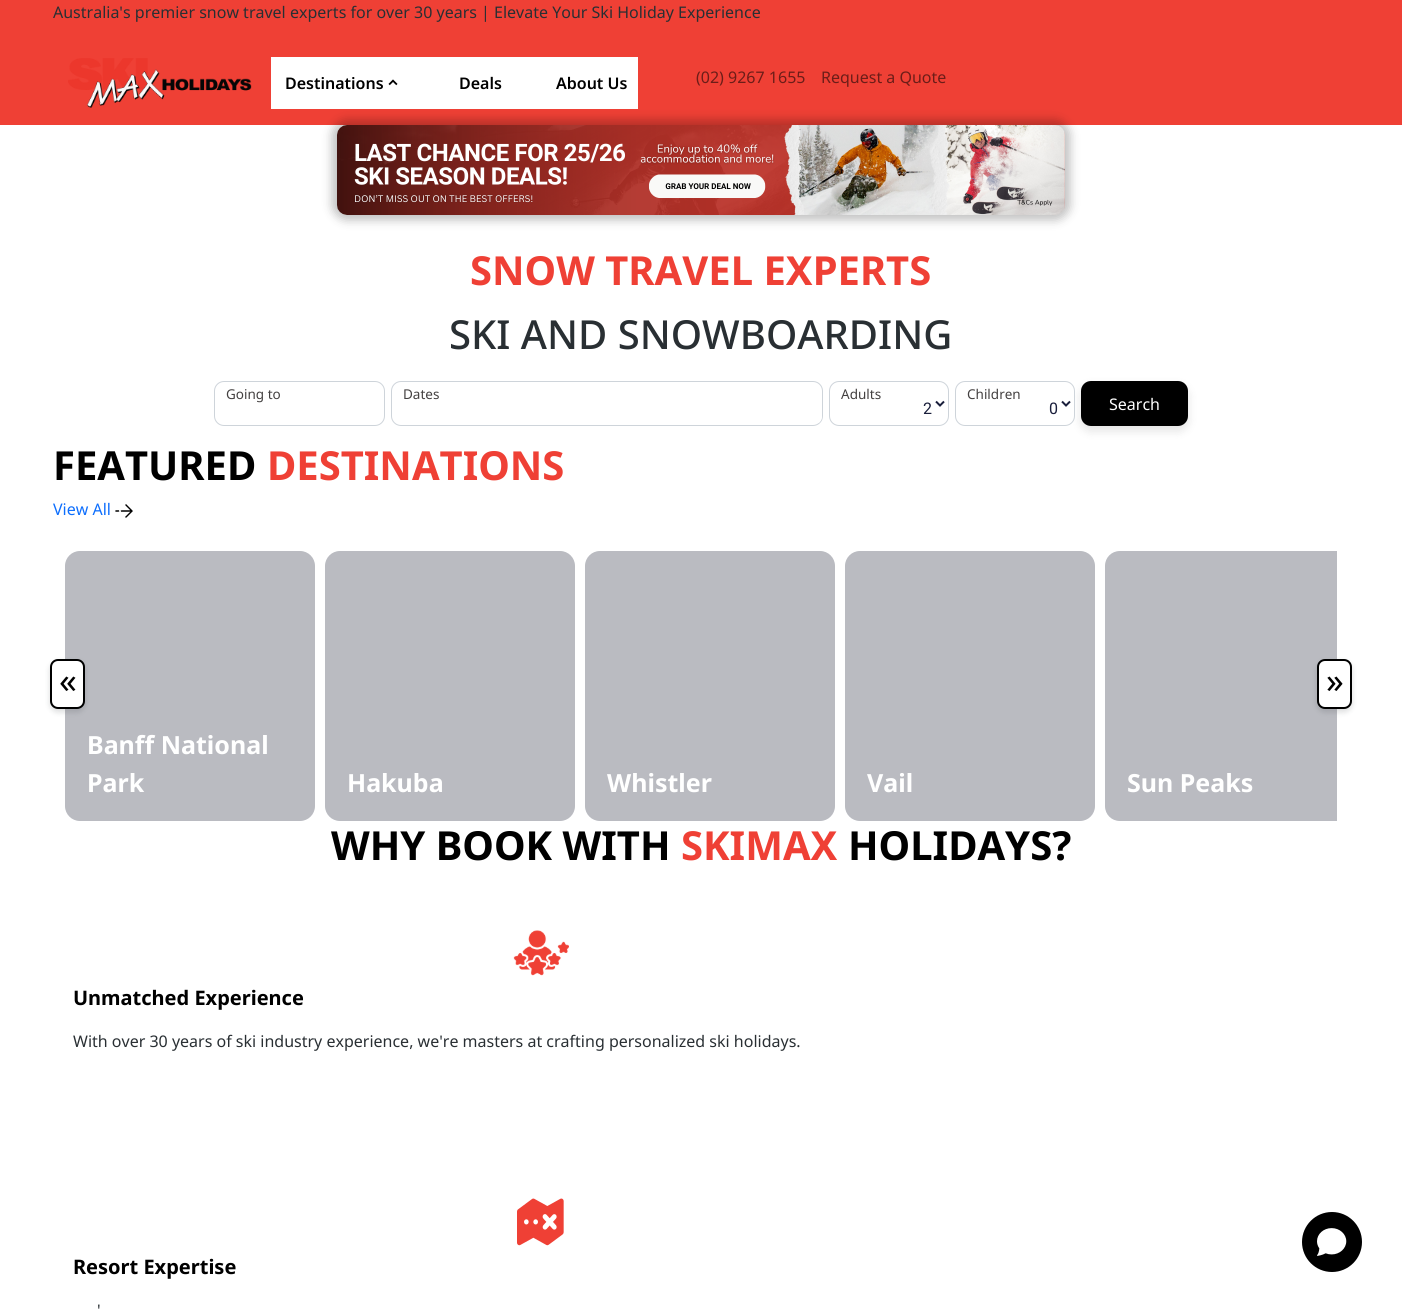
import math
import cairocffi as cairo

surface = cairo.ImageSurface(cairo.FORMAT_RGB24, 1402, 1312)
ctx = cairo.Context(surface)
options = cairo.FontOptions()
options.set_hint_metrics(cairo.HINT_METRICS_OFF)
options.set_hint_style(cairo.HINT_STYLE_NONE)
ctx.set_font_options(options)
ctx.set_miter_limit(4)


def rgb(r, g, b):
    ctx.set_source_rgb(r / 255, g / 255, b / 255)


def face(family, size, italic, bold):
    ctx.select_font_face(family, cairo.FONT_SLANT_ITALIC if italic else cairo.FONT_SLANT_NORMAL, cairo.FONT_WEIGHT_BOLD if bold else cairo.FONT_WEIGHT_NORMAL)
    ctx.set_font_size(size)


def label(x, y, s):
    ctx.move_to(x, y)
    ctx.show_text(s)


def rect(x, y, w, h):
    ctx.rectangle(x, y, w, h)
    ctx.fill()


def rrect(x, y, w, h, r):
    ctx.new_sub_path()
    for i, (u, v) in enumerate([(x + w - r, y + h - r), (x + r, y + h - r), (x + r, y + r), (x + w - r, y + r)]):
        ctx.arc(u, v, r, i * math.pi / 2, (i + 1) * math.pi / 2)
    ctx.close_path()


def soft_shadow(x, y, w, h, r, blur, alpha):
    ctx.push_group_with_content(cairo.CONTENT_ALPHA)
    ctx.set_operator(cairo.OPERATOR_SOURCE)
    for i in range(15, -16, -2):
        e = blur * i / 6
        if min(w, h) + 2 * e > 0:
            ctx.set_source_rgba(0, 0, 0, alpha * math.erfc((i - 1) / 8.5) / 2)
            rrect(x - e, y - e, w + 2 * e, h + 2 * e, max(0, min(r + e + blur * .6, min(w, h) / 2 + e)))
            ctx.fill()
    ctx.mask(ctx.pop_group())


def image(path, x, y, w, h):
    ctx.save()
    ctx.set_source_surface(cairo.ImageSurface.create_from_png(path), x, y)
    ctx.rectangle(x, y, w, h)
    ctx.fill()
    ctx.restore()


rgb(255, 255, 255)
ctx.paint()
rgb(239, 64, 53)
rect(0, 0, 1402, 125)
face('Noto Sans', 16, 0, 0)
rgb(41, 47, 51)
label(53, 18, 'Australia\'s premier snow travel experts for over 30 years | Elevate Your Ski Holiday Experience')
image('image0.png', 68, 58, 184, 50)
rgb(0, 0, 0)
soft_shadow(332, 120, 738, 100, 15, 5, 0.25)
rgb(255, 255, 255)
rect(271, 57, 367, 52)
face('Noto Sans SemiBold', 16, 0, 0)
rgb(0, 0, 0)
label(285, 89, 'Destinations')
image('image1.png', 388, 79, 10, 7)
label(459, 89, 'Deals')
label(556, 89, 'About Us')
face('Noto Sans', 16, 0, 0)
rgb(108, 29, 24)
label(696, 83, '(02) 9267 1655')
label(821, 83, 'Request a Quote')
image('image2.png', 337, 125, 728, 90)
face('Noto Sans', 40, 0, 1)
rgb(239, 64, 53)
label(470, 285, 'SNOW TRAVEL EXPERTS')
face('Noto Sans Medium', 40, 0, 0)
rgb(41, 47, 51)
label(449, 349, 'SKI AND SNOWBOARDING')
rrect(214.5, 381.5, 170, 44, 9.5)
rgb(206, 212, 218)
ctx.set_line_width(1)
ctx.stroke()
face('Noto Sans', 13.5, 0, 0)
rgb(67, 64, 64)
label(226, 399, 'Going to')
rrect(391.5, 381.5, 431, 44, 9.5)
rgb(206, 212, 218)
ctx.stroke()
ctx.save()
rrect(392, 382, 430, 43, 9)
ctx.clip()
rgb(255, 255, 255)
rect(615, 399, 207, 24)
ctx.restore()
rgb(67, 64, 64)
label(403, 399, 'Dates')
rrect(829.5, 381.5, 119, 44, 9.5)
rgb(206, 212, 218)
ctx.stroke()
rgb(67, 64, 64)
label(841, 399, 'Adults')
ctx.new_path()
ctx.move_to(936, 401.5)
ctx.line_to(940, 405.5)
ctx.line_to(944, 401.5)
rgb(25, 30, 59)
ctx.set_line_width(2)
ctx.stroke()
face('Roboto', 16, 0, 0)
label(923, 414, '2')
rgb(0, 0, 0)
soft_shadow(1081, 386, 107, 45, 10, 5, 0.11)
rgb(255, 255, 255)
rrect(955.5, 381.5, 119, 44, 9.5)
ctx.fill_preserve()
rgb(206, 212, 218)
ctx.set_line_width(1)
ctx.stroke()
face('Noto Sans', 13.5, 0, 0)
rgb(67, 64, 64)
label(967, 399, 'Children')
ctx.new_path()
ctx.move_to(1062, 401.5)
ctx.line_to(1066, 405.5)
ctx.line_to(1070, 401.5)
rgb(25, 30, 59)
ctx.set_line_width(2)
ctx.stroke()
face('Roboto', 16, 0, 0)
label(1049, 414, '0')
rgb(0, 0, 0)
rrect(1081, 381, 107, 45, 10)
ctx.fill()
face('Noto Sans', 16, 0, 0)
rgb(255, 255, 255)
label(1109, 410, 'Search')
face('Noto Sans', 40, 0, 1)
rgb(0, 0, 0)
label(53, 480, 'FEATURED')
rgb(239, 64, 53)
label(267, 480, 'DESTINATIONS')
face('Noto Sans', 16, 0, 0)
rgb(13, 110, 253)
label(53, 515, 'View All')
image('image3.png', 115, 504, 18, 14)
rgb(232, 234, 241)
rrect(65, 551, 250, 270, 15)
ctx.fill()
ctx.set_source_rgba(0, 0, 0, 0.2)
rrect(65, 551, 250, 270, 15)
ctx.fill()
rgb(25, 32, 36)
soft_shadow(50, 662, 35, 50, 8, 3, 0.16)
rgb(255, 255, 255)
rrect(51, 660, 33, 48, 7)
ctx.fill_preserve()
rgb(0, 0, 0)
ctx.stroke()
face('Noto Sans', 35, 0, 0)
label(59, 693, '«')
rgb(232, 234, 241)
ctx.new_path()
ctx.move_to(1120, 551)
ctx.line_to(1337, 551)
ctx.line_to(1337, 821)
ctx.line_to(1120, 821)
ctx.curve_to(1111.5, 821, 1105, 814.5, 1105, 806)
ctx.line_to(1105, 566)
ctx.curve_to(1105, 557.5, 1111.5, 551, 1120, 551)
ctx.close_path()
ctx.fill()
ctx.set_source_rgba(0, 0, 0, 0.2)
ctx.new_path()
ctx.move_to(1120, 551)
ctx.line_to(1337, 551)
ctx.line_to(1337, 821)
ctx.line_to(1120, 821)
ctx.curve_to(1111.5, 821, 1105, 814.5, 1105, 806)
ctx.line_to(1105, 566)
ctx.curve_to(1105, 557.5, 1111.5, 551, 1120, 551)
ctx.close_path()
ctx.fill()
rgb(25, 32, 36)
soft_shadow(1317, 662, 35, 50, 8, 3, 0.16)
rgb(255, 255, 255)
rrect(1318, 660, 33, 48, 7)
ctx.fill_preserve()
rgb(0, 0, 0)
ctx.stroke()
label(1326, 693, '»')
face('Noto Sans', 25, 0, 1)
rgb(255, 255, 255)
label(87, 754, 'Banff National')
label(87, 792, 'Park')
rgb(232, 234, 241)
rrect(325, 551, 250, 270, 15)
ctx.fill()
ctx.set_source_rgba(0, 0, 0, 0.2)
rrect(325, 551, 250, 270, 15)
ctx.fill()
rgb(255, 255, 255)
label(347, 792, 'Hakuba')
rgb(232, 234, 241)
rrect(585, 551, 250, 270, 15)
ctx.fill()
ctx.set_source_rgba(0, 0, 0, 0.2)
rrect(585, 551, 250, 270, 15)
ctx.fill()
rgb(255, 255, 255)
label(607, 792, 'Whistler')
rgb(232, 234, 241)
rrect(845, 551, 250, 270, 15)
ctx.fill()
ctx.set_source_rgba(0, 0, 0, 0.2)
rrect(845, 551, 250, 270, 15)
ctx.fill()
rgb(255, 255, 255)
label(867, 792, 'Vail')
label(1127, 792, 'Sun Peaks')
face('Noto Sans', 40, 0, 1)
rgb(0, 0, 0)
label(331, 860, 'WHY BOOK WITH')
rgb(239, 64, 53)
label(681, 860, 'SKIMAX')
rgb(0, 0, 0)
label(848, 860, 'HOLIDAYS?')
image('image4.png', 513, 930, 56, 46)
face('Noto Sans', 20, 0, 1)
label(73, 1005, 'Unmatched Experience')
face('Noto Sans', 16, 0, 0)
rgb(41, 47, 51)
label(73, 1047, 'With over 30 years of ski industry experience, we\'re masters at crafting personalized ski holidays.')
image('image5.png', 517, 1198, 47, 48)
face('Noto Sans', 20, 0, 1)
rgb(0, 0, 0)
label(73, 1274, 'Resort Expertise')
face('Noto Sans', 16, 0, 0)
rgb(41, 47, 51)
label(97, 1316, '\'')
rgb(0, 0, 0)
ctx.new_path()
ctx.arc(1332, 1242, 30, 0, 2 * math.pi)
ctx.fill()
image('image6.png', 1317, 1228, 30, 28)
surface.write_to_png('render.png')
